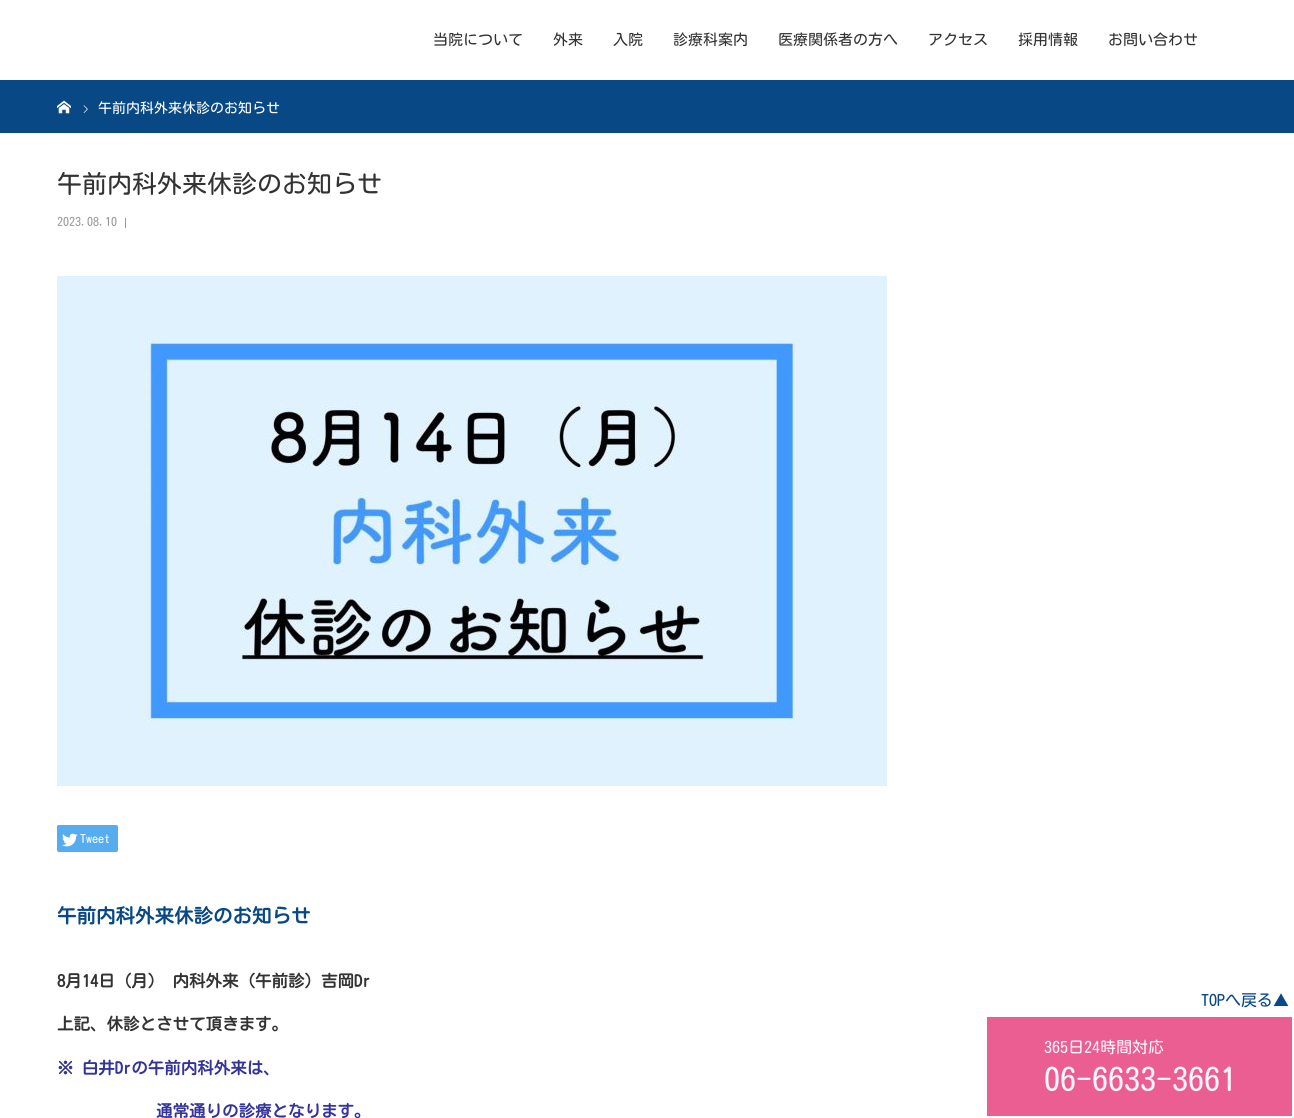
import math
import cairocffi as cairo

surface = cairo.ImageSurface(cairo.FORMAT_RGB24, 1294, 1118)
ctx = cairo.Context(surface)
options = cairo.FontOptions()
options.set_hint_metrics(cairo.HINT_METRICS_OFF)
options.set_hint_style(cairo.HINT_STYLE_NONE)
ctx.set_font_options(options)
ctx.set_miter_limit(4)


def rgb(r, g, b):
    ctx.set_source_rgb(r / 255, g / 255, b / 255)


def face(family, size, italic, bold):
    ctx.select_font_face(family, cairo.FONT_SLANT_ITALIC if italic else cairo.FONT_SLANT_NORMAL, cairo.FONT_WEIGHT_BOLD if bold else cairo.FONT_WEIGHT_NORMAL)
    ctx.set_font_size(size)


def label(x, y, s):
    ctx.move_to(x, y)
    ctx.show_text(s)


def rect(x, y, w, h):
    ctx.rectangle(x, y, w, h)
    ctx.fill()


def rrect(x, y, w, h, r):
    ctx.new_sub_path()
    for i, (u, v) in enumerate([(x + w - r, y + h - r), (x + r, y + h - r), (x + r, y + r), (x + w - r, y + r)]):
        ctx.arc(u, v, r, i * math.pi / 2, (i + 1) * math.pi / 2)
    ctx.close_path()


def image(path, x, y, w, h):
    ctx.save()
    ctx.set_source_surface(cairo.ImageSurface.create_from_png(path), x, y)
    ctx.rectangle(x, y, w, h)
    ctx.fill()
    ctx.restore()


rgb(255, 255, 255)
ctx.paint()
face('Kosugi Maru', 15, 0, 0)
rgb(51, 51, 51)
label(433, 45, '当院について')
label(553, 45, '外来')
label(613, 45, '入院')
label(673, 45, '診療科案内')
label(778, 45, '医療関係者の方へ')
label(928, 45, 'アクセス')
label(1018, 45, '採用情報')
label(1108, 45, 'お問い合わせ')
rgb(8, 73, 133)
rect(0, 80, 1294, 53)
image('image0.png', 57, 100, 14, 14)
image('image1.png', 83, 105, 5, 8)
face('Kosugi Maru', 14, 0, 0)
rgb(255, 255, 255)
label(98, 113, '午前内科外来休診のお知らせ')
face('Kosugi Maru', 25, 0, 0)
rgb(51, 51, 51)
label(57, 193, '午前内科外来休診のお知らせ')
face('Kosugi Maru', 12, 0, 0)
rgb(153, 153, 153)
label(57, 226, '2023.08.10')
rect(125, 218, 1, 10)
image('image2.png', 57, 276, 830, 510)
rgb(247, 247, 247)
ctx.new_path()
ctx.move_to(57, 850)
ctx.curve_to(57, 856, 65, 853, 68, 853)
ctx.line_to(106, 853)
ctx.curve_to(110, 853, 118, 856, 118, 850)
ctx.line_to(117, 852)
ctx.line_to(68, 852)
ctx.curve_to(65, 852, 60, 854, 58, 851)
ctx.close_path()
ctx.fill()
rgb(85, 172, 238)
rrect(57, 825, 61, 27, 2)
ctx.fill()
image('image3.png', 62, 833, 16, 14)
rgb(255, 255, 255)
label(80, 843, 'Tweet')
face('Kosugi Maru', 19.5, 0, 1)
rgb(8, 73, 133)
label(57, 923, '午前内科外来休診のお知らせ')
face('Kosugi Maru', 16.5, 0, 1)
rgb(51, 51, 51)
label(57, 987, '8月14日（月） 内科外来（午前診）吉岡Dr')
label(57, 1030, '上記、休診とさせて頂きます。')
rgb(51, 51, 153)
label(57, 1074, '※ 白井Drの午前内科外来は、')
label(156, 1117, '通常通りの診療となります。')
rgb(235, 94, 146)
rect(987, 1017, 305, 99)
face('Kosugi Maru', 16, 0, 0)
rgb(254, 246, 249)
label(1044, 1053, '365日24時間対応')
face('Kosugi Maru', 32, 0, 0)
label(1044, 1091, '06-6633-3661')
face('Kosugi Maru', 16, 0, 0)
rgb(8, 73, 133)
label(1201, 1006, 'TOPへ戻る▲')
surface.write_to_png('render.png')
